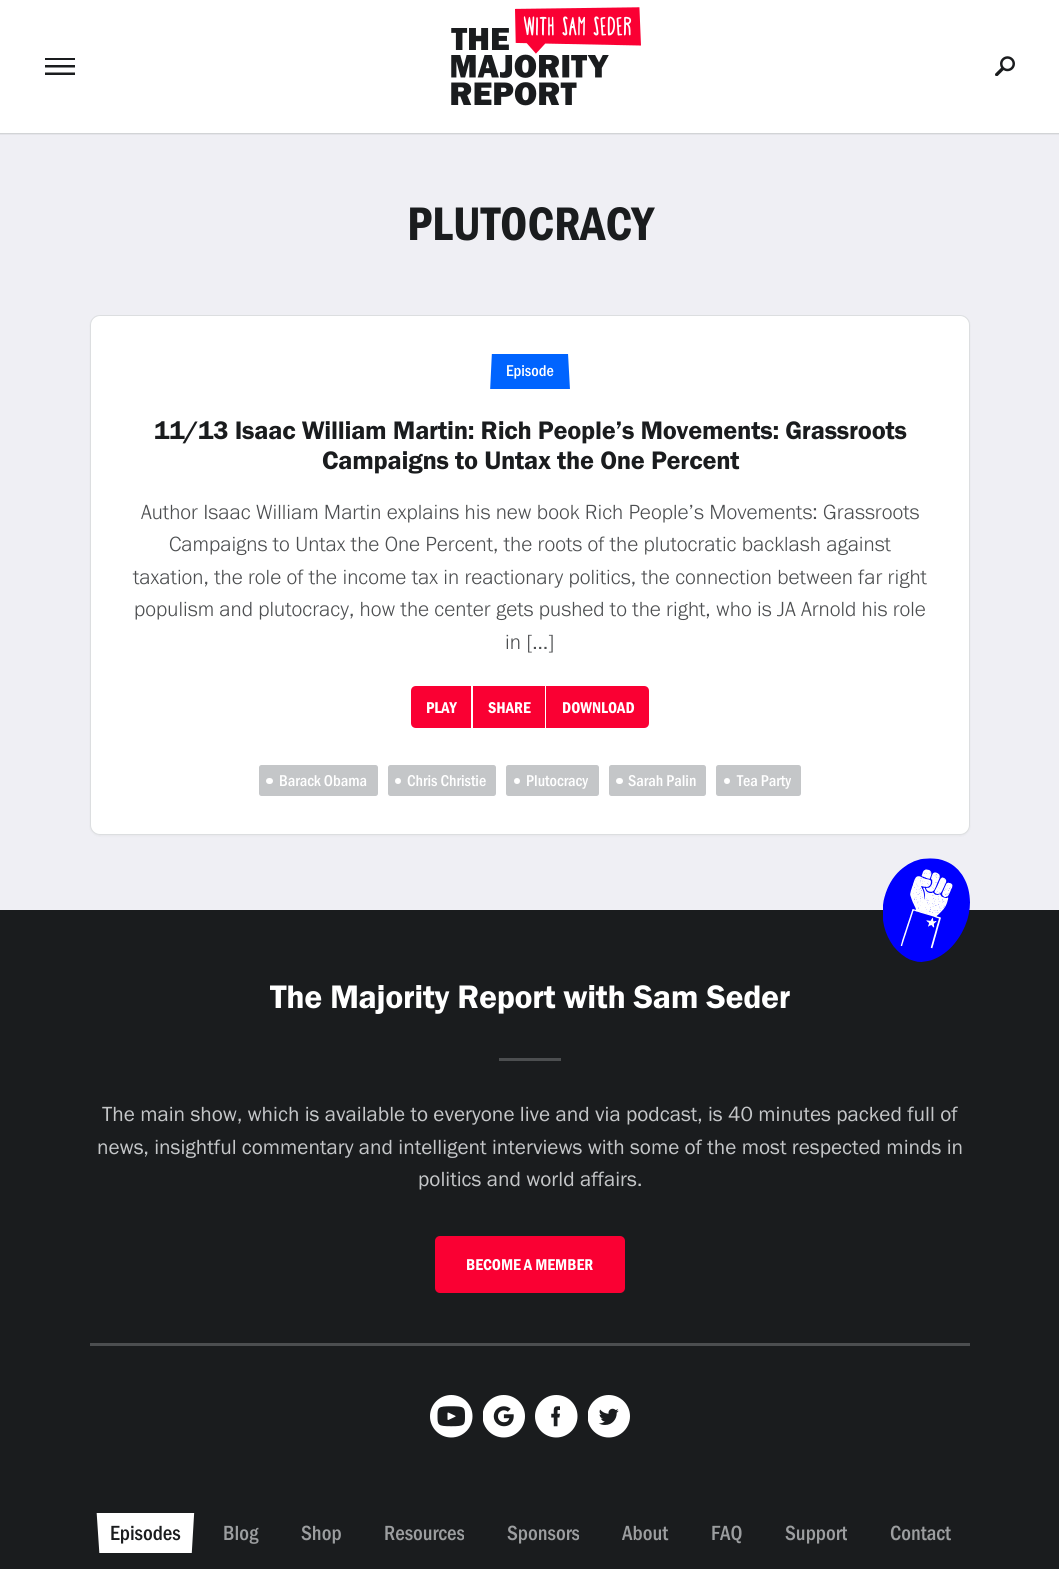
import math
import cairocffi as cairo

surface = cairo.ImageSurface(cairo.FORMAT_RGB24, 1059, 1569)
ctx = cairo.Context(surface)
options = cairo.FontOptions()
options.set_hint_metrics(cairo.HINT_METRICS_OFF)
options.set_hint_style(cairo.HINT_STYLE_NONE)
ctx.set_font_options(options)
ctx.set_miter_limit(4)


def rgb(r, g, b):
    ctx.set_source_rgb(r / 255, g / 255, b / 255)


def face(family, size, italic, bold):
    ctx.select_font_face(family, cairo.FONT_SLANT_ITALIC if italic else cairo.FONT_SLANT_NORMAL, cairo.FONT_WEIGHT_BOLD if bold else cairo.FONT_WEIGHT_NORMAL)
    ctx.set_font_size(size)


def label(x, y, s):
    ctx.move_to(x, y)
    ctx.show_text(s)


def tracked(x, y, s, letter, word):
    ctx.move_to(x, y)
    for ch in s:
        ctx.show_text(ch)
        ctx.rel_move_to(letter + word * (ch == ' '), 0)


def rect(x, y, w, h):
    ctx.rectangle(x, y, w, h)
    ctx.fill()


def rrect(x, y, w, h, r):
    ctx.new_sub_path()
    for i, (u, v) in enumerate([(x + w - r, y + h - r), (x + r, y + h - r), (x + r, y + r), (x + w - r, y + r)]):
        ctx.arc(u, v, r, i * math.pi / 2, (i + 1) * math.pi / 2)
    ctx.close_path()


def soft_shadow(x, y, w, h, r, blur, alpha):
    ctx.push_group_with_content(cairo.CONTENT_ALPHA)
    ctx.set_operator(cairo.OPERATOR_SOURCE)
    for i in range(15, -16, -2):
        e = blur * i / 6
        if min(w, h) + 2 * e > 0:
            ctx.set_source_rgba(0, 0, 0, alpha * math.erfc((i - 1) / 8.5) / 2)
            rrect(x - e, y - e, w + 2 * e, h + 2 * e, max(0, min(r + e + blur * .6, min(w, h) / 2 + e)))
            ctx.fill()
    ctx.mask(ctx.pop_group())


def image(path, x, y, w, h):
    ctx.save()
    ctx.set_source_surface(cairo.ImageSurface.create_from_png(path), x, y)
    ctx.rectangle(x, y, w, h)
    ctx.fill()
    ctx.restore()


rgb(26, 28, 30)
ctx.paint()
rgb(255, 255, 255)
rect(0, 0, 1059, 133)
image('image0.png', 45, 58, 30, 17)
image('image2.png', 451, 28, 158, 78)
image('image1.png', 515, 7, 126, 47)
image('image3.png', 995, 56, 20, 20)
rgb(239, 239, 244)
rect(0, 135, 1059, 775)
rgb(228, 228, 233)
rect(0, 134, 1059, 1)
rgb(210, 212, 214)
rect(0, 133, 1059, 1)
face('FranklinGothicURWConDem', 48.75, 0, 0)
rgb(26, 28, 30)
label(407, 240, 'PLUTOCRACY')
rgb(26, 28, 30)
soft_shadow(90, 316, 880, 520, 10, 1, 0.05)
rgb(255, 255, 255)
rrect(90.5, 315.5, 879, 519, 9.5)
ctx.fill_preserve()
rgb(220, 222, 224)
ctx.set_line_width(1)
ctx.stroke()
ctx.save()
ctx.rectangle(489, 354, 82, 35)
ctx.clip()
rgb(0, 100, 255)
ctx.set_fill_rule(cairo.FILL_RULE_EVEN_ODD)
ctx.new_path()
ctx.move_to(489, 413)
ctx.line_to(493, 330)
ctx.line_to(567, 335)
ctx.line_to(571, 408)
ctx.close_path()
ctx.fill()
ctx.restore()
face('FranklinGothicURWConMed', 16.25, 0, 0)
rgb(255, 255, 255)
label(506, 376, 'Episode')
face('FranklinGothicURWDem', 26.25, 0, 0)
rgb(26, 28, 30)
tracked(154, 439, '11/13 Isaac William Martin: Rich People’s Movements: Grassroots', -0.25, 0)
tracked(322, 469, 'Campaigns to Untax the One Percent', -0.25, 0)
face('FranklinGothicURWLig', 21.25, 0, 0)
rgb(76, 78, 80)
label(141, 519, 'Author Isaac William Martin explains his new book Rich People’s Movements: Grassroots')
label(169, 551, 'Campaigns to Untax the One Percent, the roots of the plutocratic backlash against')
label(133, 584, 'taxation, the role of the income tax in reactionary politics, the connection between far right')
label(134, 616, 'populism and plutocracy, how the center gets pushed to the right, who is JA Arnold his role')
label(505, 649, 'in […]')
rgb(250, 0, 51)
ctx.new_path()
ctx.move_to(416, 686)
ctx.line_to(471, 686)
ctx.line_to(471, 728)
ctx.line_to(416, 728)
ctx.curve_to(413, 728, 411, 726, 411, 723)
ctx.line_to(411, 691)
ctx.curve_to(411, 688, 413, 686, 416, 686)
ctx.close_path()
ctx.fill()
face('FranklinGothicURWConDem', 16.25, 0, 0)
rgb(255, 255, 255)
label(426, 713, 'PLAY')
rgb(250, 0, 51)
rect(473, 686, 72, 42)
rgb(255, 255, 255)
label(488, 713, 'SHARE')
rgb(250, 0, 51)
ctx.new_path()
ctx.move_to(546, 686)
ctx.line_to(644, 686)
ctx.curve_to(647, 686, 649, 688, 649, 691)
ctx.line_to(649, 723)
ctx.curve_to(649, 726, 647, 728, 644, 728)
ctx.line_to(546, 728)
ctx.close_path()
ctx.fill()
rgb(255, 255, 255)
label(562, 713, 'DOWNLOAD')
rgb(196, 198, 200)
rrect(259, 765, 119, 31, 2.5)
ctx.fill()
rgb(255, 255, 255)
rrect(266, 778, 7, 6, 3)
ctx.fill()
face('FranklinGothicURWConMed', 16.25, 0, 0)
label(279, 786, 'Barack Obama')
rgb(196, 198, 200)
rrect(388, 765, 108, 31, 2.5)
ctx.fill()
rgb(255, 255, 255)
ctx.arc(398, 781, 3, 0, 2 * math.pi)
ctx.fill()
label(407, 786, 'Chris Christie')
rgb(196, 198, 200)
rrect(506, 765, 93, 31, 2.5)
ctx.fill()
rgb(255, 255, 255)
ctx.arc(517, 781, 3, 0, 2 * math.pi)
ctx.fill()
label(526, 786, 'Plutocracy')
rgb(196, 198, 200)
rrect(609, 765, 97, 31, 2.5)
ctx.fill()
rgb(255, 255, 255)
rrect(616, 778, 7, 6, 3)
ctx.fill()
label(628, 786, 'Sarah Palin')
rgb(196, 198, 200)
rrect(716, 765, 85, 31, 2.5)
ctx.fill()
rgb(255, 255, 255)
ctx.arc(727, 781, 3, 0, 2 * math.pi)
ctx.fill()
label(737, 786, 'Tea Party')
image('image4.png', 883, 858, 87, 104)
rgb(76, 78, 80)
rect(90, 1343, 880, 3)
face('FranklinGothicURWDem', 33.75, 0, 0)
rgb(255, 255, 255)
tracked(270, 1008, 'The Majority Report with Sam Seder', -0.35, 0)
rgb(76, 78, 80)
rect(499, 1058, 62, 3)
face('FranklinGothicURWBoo', 21.25, 0, 0)
rgb(196, 198, 200)
label(102, 1121, 'The main show, which is available to everyone live and via podcast, is 40 minutes packed full of')
label(97, 1154, 'news, insightful commentary and intelligent interviews with some of the most respected minds in')
label(418, 1186, 'politics and world affairs.')
rgb(250, 0, 51)
rrect(435, 1236, 190, 57, 5)
ctx.fill()
face('FranklinGothicURWConDem', 16.25, 0, 0)
rgb(255, 255, 255)
label(466, 1270, 'BECOME A MEMBER')
image('image5.png', 430, 1395, 43, 43)
image('image6.png', 483, 1395, 42, 43)
image('image7.png', 535, 1395, 43, 43)
image('image8.png', 588, 1395, 42, 43)
ctx.save()
ctx.rectangle(95, 1513, 100, 40)
ctx.clip()
ctx.set_fill_rule(cairo.FILL_RULE_EVEN_ODD)
ctx.new_path()
ctx.move_to(196, 1482)
ctx.line_to(190, 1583)
ctx.line_to(101, 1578)
ctx.line_to(95, 1488)
ctx.close_path()
ctx.fill()
ctx.restore()
face('FranklinGothicURWConMed', 21.25, 0, 0)
rgb(26, 28, 30)
label(110, 1540, 'Episodes')
rgb(156, 158, 160)
label(223, 1540, 'Blog')
label(301, 1540, 'Shop')
label(384, 1540, 'Resources')
label(507, 1540, 'Sponsors')
label(622, 1540, 'About')
label(711, 1540, 'FAQ')
label(785, 1540, 'Support')
label(890, 1540, 'Contact')
surface.write_to_png('render.png')
